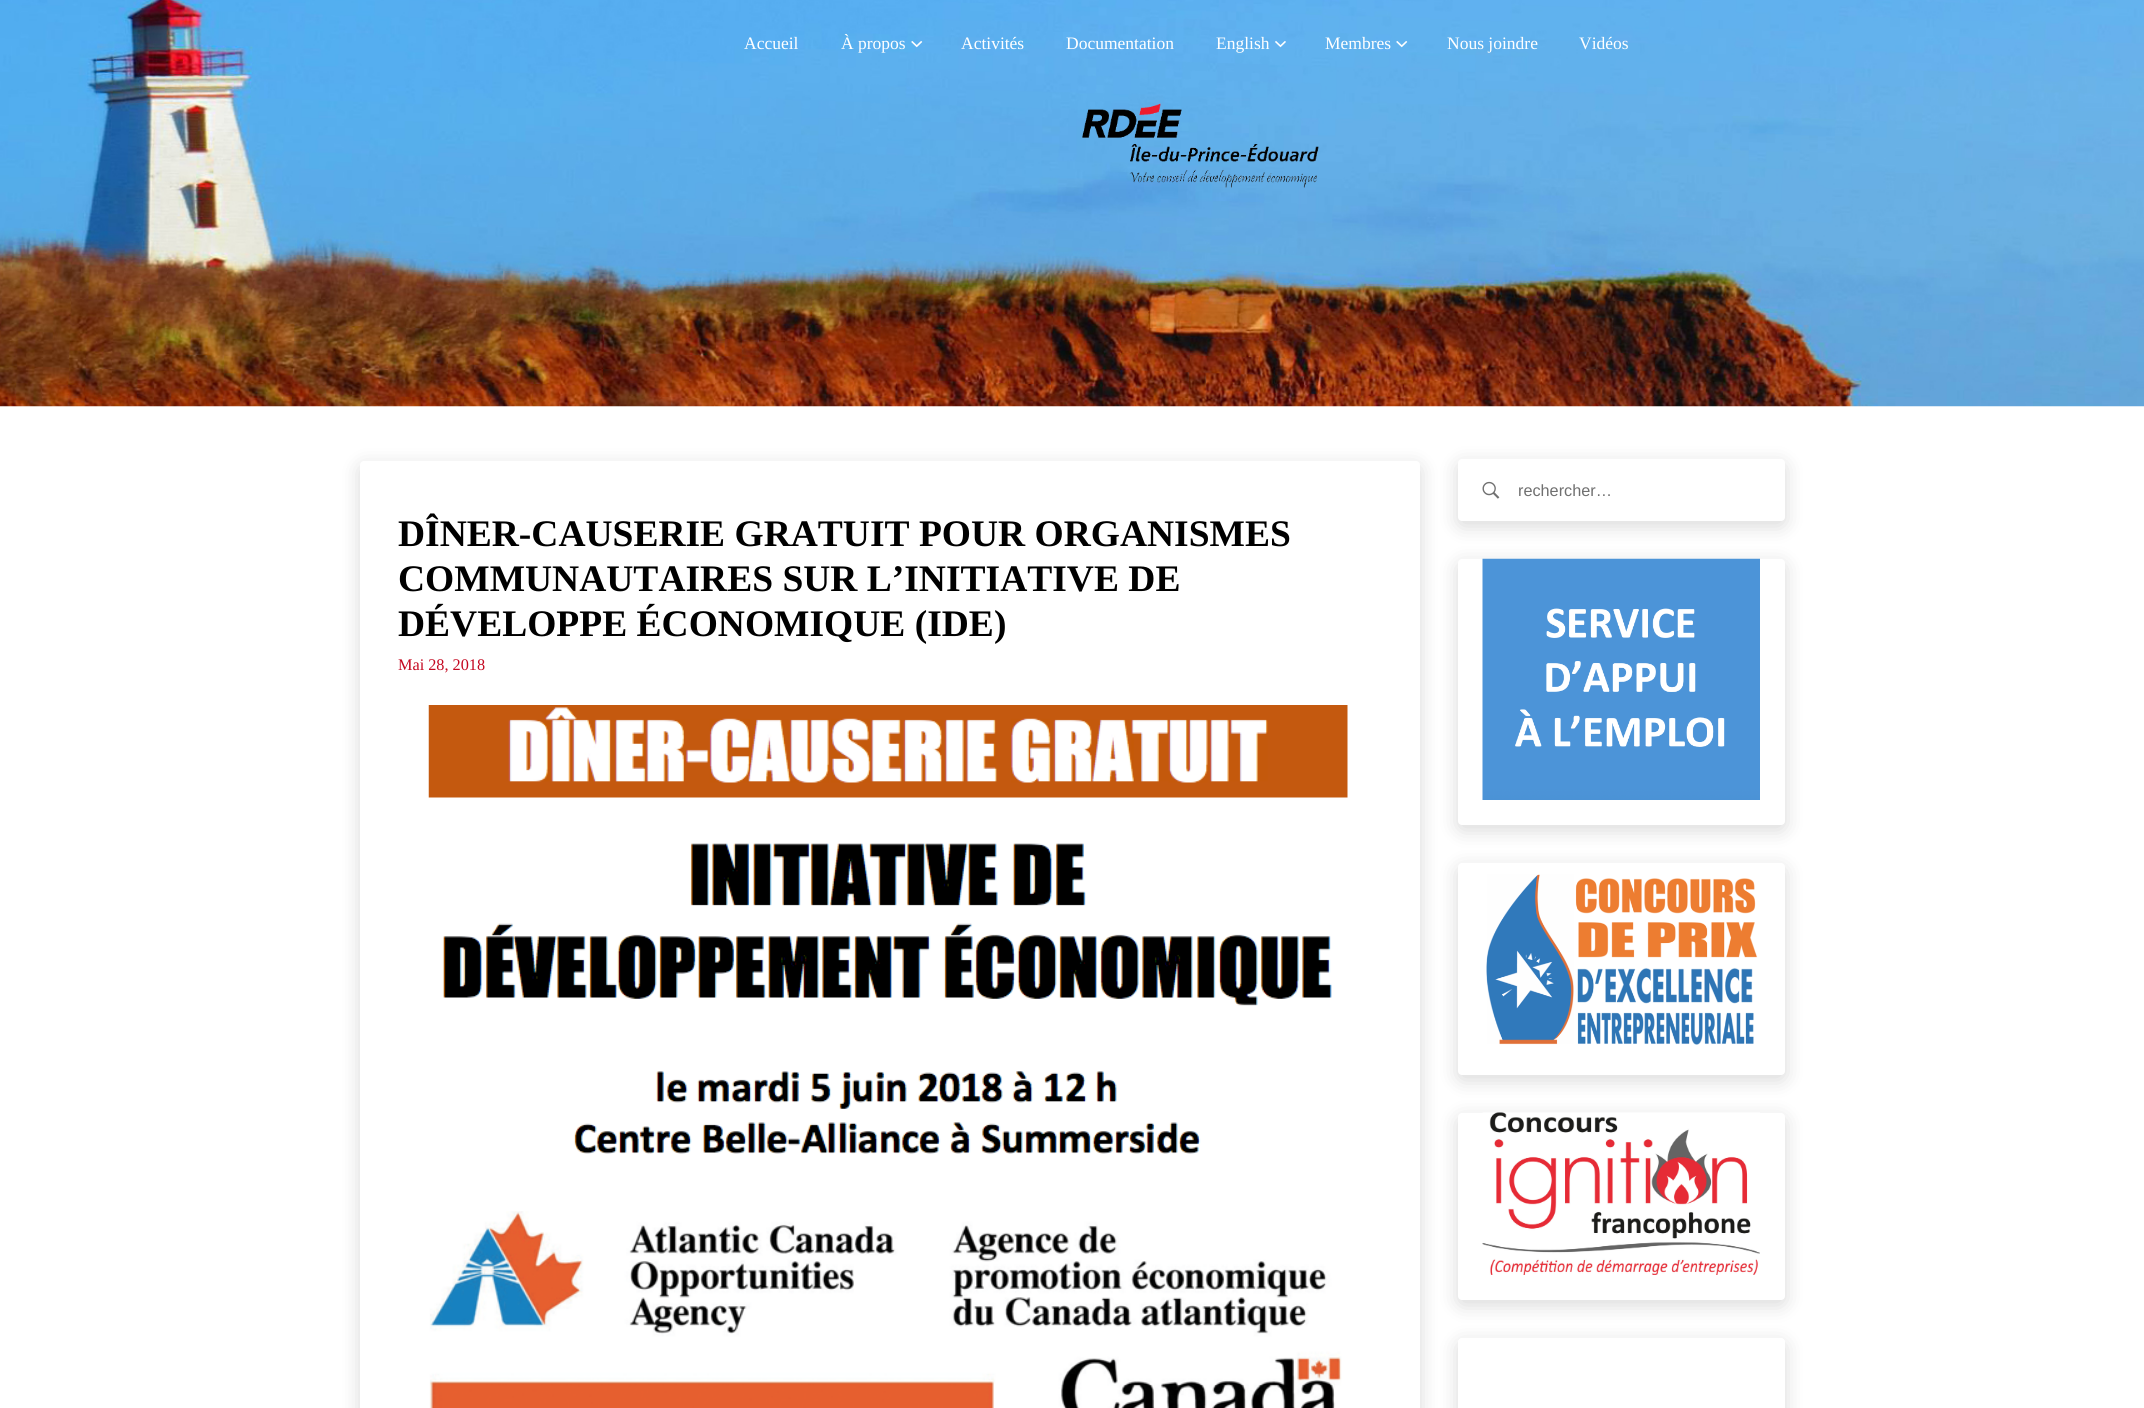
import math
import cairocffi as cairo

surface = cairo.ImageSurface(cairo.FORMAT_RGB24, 2144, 1408)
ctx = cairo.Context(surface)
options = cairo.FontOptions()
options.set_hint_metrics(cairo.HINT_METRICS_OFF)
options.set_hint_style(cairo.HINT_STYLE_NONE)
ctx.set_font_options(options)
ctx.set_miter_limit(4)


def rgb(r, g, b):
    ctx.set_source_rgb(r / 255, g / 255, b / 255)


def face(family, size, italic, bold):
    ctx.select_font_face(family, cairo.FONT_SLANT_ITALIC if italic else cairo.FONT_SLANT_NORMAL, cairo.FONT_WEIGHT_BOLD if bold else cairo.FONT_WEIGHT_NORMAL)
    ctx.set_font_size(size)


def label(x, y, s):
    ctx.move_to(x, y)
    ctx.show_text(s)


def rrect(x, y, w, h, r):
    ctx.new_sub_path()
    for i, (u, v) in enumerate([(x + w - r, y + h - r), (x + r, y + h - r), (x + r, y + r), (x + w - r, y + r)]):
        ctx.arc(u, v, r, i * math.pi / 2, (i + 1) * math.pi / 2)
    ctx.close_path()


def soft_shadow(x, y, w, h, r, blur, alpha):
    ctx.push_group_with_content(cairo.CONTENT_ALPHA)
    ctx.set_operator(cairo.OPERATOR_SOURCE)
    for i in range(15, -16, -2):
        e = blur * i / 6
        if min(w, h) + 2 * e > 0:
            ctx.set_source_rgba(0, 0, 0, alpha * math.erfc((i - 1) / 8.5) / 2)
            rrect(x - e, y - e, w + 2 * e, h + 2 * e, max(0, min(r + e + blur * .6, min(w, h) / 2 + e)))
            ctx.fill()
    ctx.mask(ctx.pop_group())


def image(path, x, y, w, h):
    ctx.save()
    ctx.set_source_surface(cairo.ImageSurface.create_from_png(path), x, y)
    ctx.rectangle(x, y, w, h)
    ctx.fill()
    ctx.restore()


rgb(255, 255, 255)
ctx.paint()
image('image0.png', 0, 0, 2144, 407)
face('Liberation Serif', 17.5, 0, 0)
rgb(255, 255, 255)
label(744, 49, 'Accueil')
label(841, 49, 'À propos')
image('image1.png', 911, 41, 12, 7)
label(961, 49, 'Activités')
label(1066, 49, 'Documentation')
label(1216, 49, 'English')
image('image2.png', 1275, 41, 11, 7)
label(1325, 49, 'Membres')
image('image3.png', 1396, 41, 12, 7)
label(1447, 49, 'Nous joindre')
label(1579, 49, 'Vidéos')
image('image4.png', 1082, 103, 237, 85)
rgb(0, 0, 0)
soft_shadow(1458, 464, 327, 62, 4, 10, 0.15)
rgb(255, 255, 255)
rrect(1458, 459, 327, 62, 4)
ctx.fill()
image('image5.png', 1482, 481, 18, 18)
face('Liberation Sans', 16.25, 0, 0)
rgb(112, 112, 112)
label(1518, 496, 'rechercher…')
rgb(0, 0, 0)
soft_shadow(1458, 564, 327, 266, 4, 10, 0.15)
rgb(255, 255, 255)
rrect(1458, 559, 327, 266, 4)
ctx.fill()
image('image6.png', 1482, 558, 278, 242)
rgb(0, 0, 0)
soft_shadow(1458, 868, 327, 212, 4, 10, 0.15)
rgb(255, 255, 255)
rrect(1458, 863, 327, 212, 4)
ctx.fill()
image('image7.png', 1486, 874, 272, 171)
rgb(0, 0, 0)
soft_shadow(1458, 1118, 327, 187, 4, 10, 0.15)
rgb(255, 255, 255)
rrect(1458, 1113, 327, 187, 4)
ctx.fill()
image('image8.png', 1482, 1112, 278, 163)
ctx.save()
ctx.set_fill_rule(cairo.FILL_RULE_EVEN_ODD)
ctx.new_path()
ctx.move_to(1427, 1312)
ctx.line_to(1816, 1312)
ctx.line_to(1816, 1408)
ctx.line_to(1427, 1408)
ctx.close_path()
ctx.move_to(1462, 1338)
ctx.line_to(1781, 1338)
ctx.curve_to(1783, 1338, 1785, 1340, 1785, 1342)
ctx.line_to(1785, 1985)
ctx.curve_to(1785, 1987, 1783, 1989, 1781, 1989)
ctx.line_to(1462, 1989)
ctx.curve_to(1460, 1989, 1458, 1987, 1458, 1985)
ctx.line_to(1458, 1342)
ctx.curve_to(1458, 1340, 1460, 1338, 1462, 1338)
ctx.close_path()
ctx.clip()
rgb(0, 0, 0)
soft_shadow(1458, 1343, 327, 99, 4, 10, 0.15)
ctx.restore()
rgb(0, 0, 0)
soft_shadow(360, 466, 1060, 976, 4, 10, 0.15)
rgb(255, 255, 255)
rrect(360, 461, 1060, 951, 4)
ctx.fill()
face('Liberation Serif', 37.5, 0, 1)
rgb(0, 0, 0)
label(398, 546, 'DÎNER-CAUSERIE GRATUIT POUR ORGANISMES')
label(398, 591, 'COMMUNAUTAIRES SUR L’INITIATIVE DE')
label(398, 636, 'DÉVELOPPE ÉCONOMIQUE (IDE)')
face('Liberation Serif', 16.25, 0, 0)
rgb(196, 8, 32)
label(398, 670, 'Mai 28, 2018')
image('image9.png', 428, 705, 920, 703)
surface.write_to_png('render.png')
